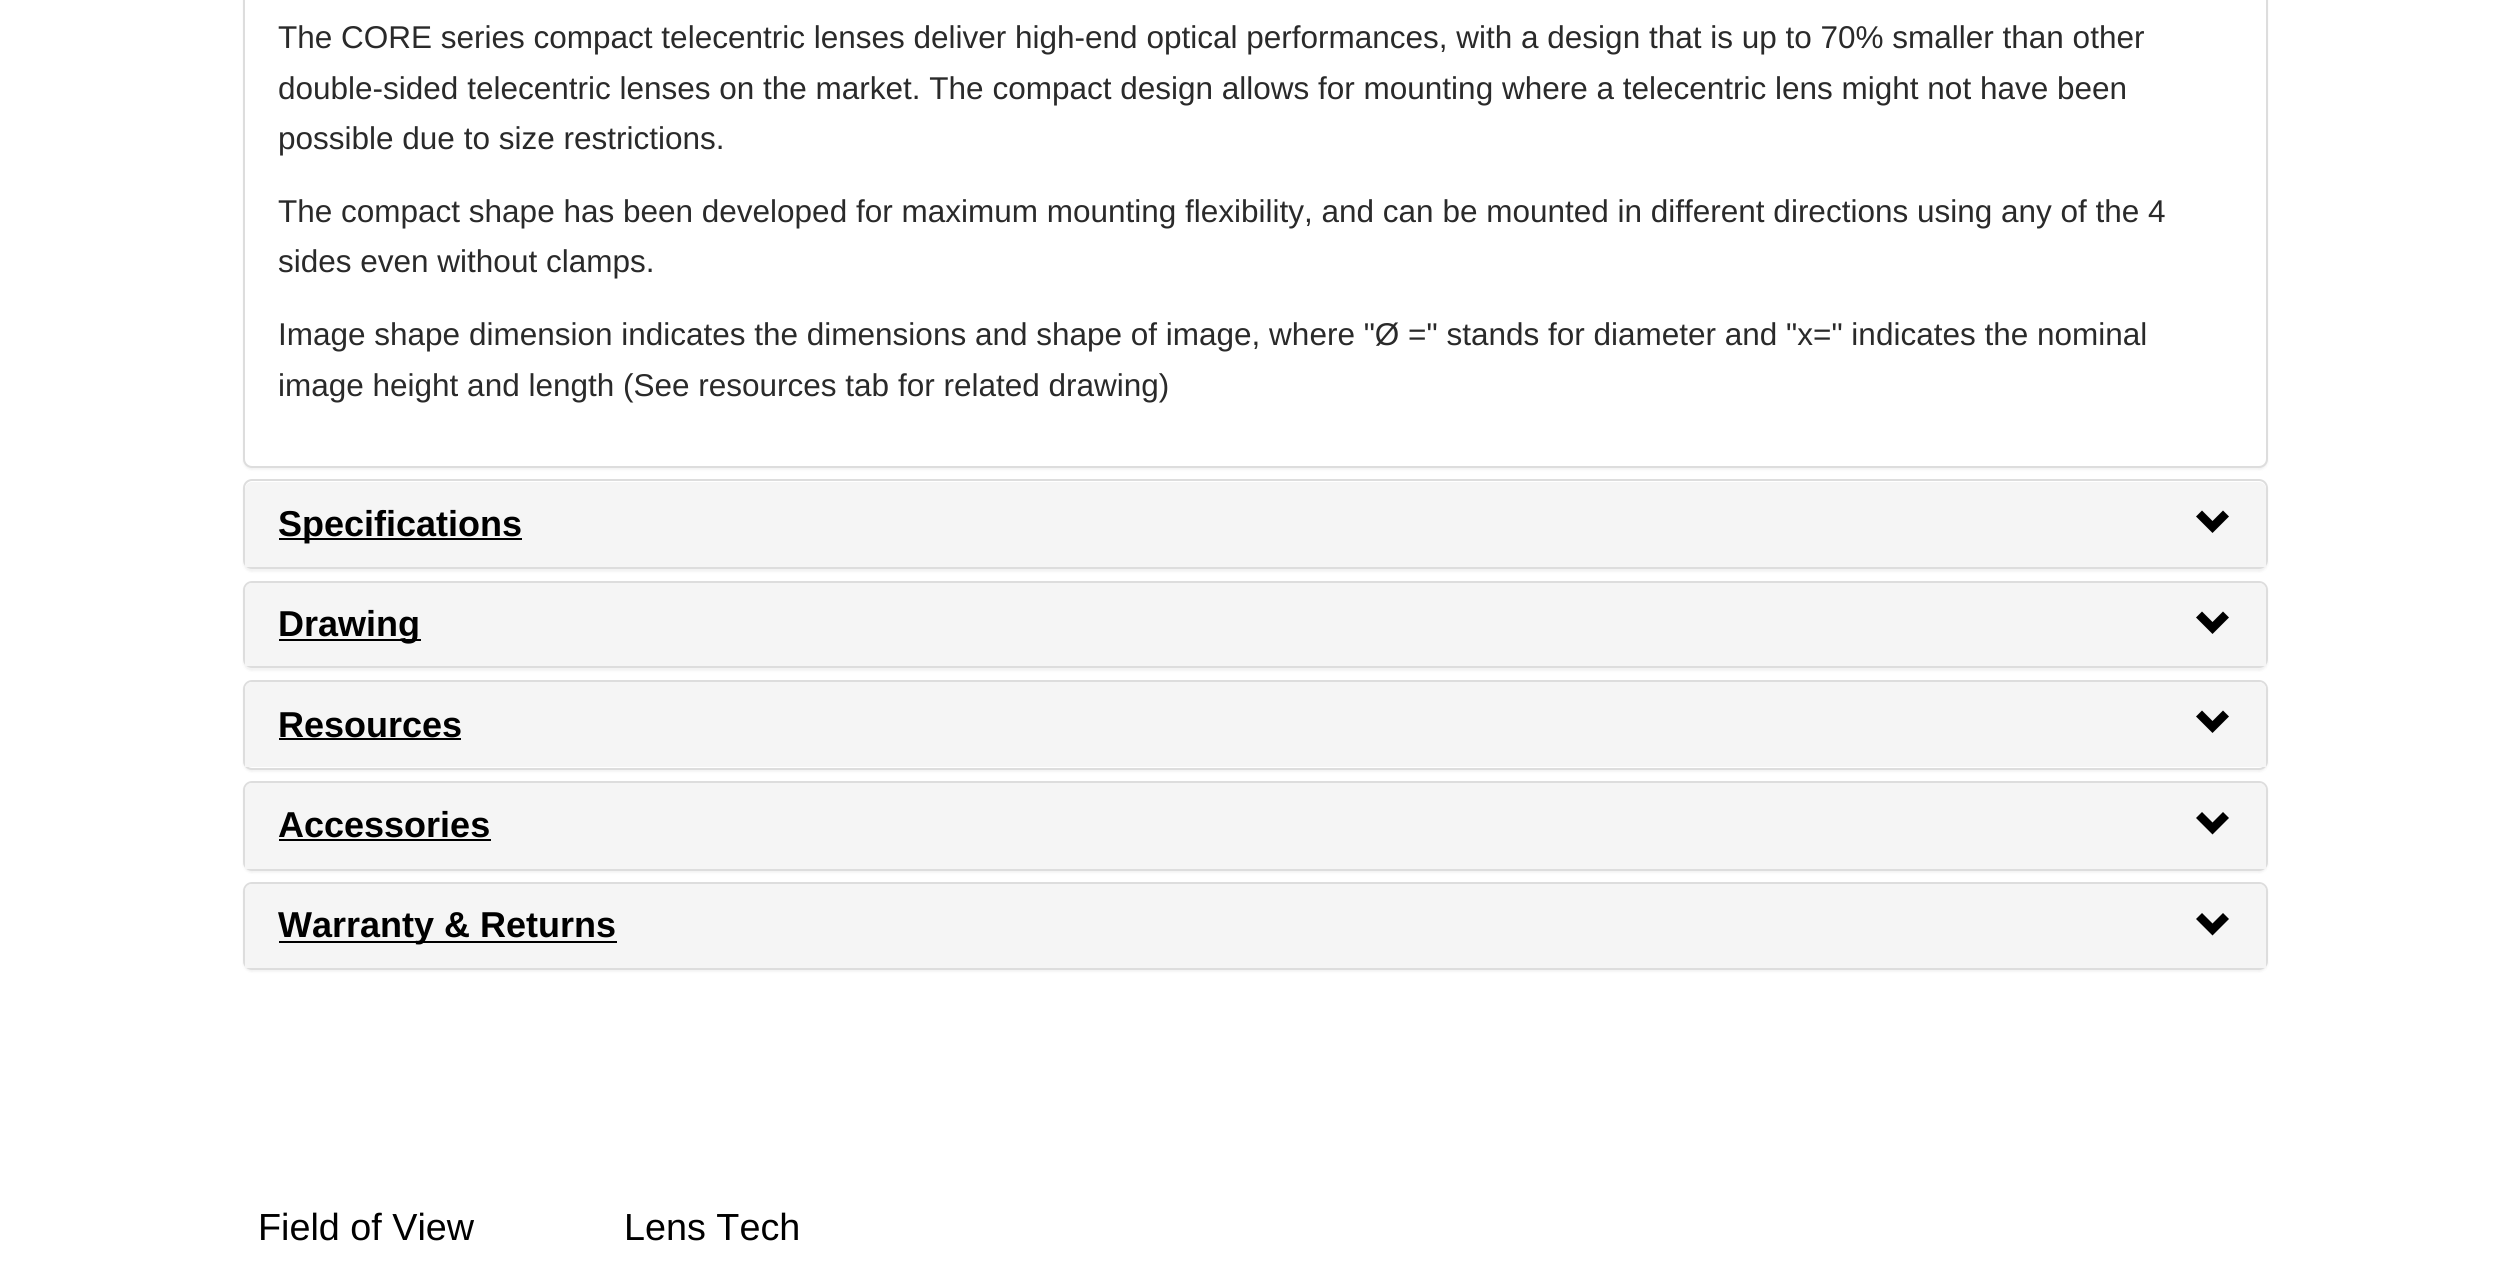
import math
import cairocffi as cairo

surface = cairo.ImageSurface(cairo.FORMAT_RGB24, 2508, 1281)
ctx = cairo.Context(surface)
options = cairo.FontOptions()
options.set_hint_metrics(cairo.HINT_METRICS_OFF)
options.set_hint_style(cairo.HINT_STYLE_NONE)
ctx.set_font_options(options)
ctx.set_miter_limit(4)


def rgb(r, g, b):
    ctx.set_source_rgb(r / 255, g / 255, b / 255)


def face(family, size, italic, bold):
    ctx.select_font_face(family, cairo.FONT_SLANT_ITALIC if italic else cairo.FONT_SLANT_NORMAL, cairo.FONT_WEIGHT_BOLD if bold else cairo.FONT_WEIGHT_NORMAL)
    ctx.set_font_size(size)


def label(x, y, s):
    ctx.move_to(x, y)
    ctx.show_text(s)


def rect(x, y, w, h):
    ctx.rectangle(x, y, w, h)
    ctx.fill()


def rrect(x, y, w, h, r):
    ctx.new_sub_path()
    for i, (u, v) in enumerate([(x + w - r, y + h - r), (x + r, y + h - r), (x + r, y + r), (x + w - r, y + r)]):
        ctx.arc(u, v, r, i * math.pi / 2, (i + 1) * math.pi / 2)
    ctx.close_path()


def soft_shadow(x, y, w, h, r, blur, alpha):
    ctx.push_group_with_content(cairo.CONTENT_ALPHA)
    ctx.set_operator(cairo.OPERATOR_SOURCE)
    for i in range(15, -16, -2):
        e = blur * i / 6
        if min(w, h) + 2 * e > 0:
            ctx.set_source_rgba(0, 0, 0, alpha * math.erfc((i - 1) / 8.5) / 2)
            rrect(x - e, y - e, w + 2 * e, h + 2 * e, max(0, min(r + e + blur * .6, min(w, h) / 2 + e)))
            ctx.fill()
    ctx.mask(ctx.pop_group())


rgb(255, 255, 255)
ctx.paint()
rgb(0, 0, 0)
soft_shadow(243, -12, 2025, 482, 9, 1, 0.05)
rgb(255, 255, 255)
rrect(244, -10, 2023, 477, 8)
ctx.fill_preserve()
rgb(221, 221, 221)
ctx.stroke()
face('Liberation Sans', 31.5, 0, 0)
rgb(42, 42, 42)
label(278, 48, 'The CORE series compact telecentric lenses deliver high-end optical performances, with a design that is up to 70% smaller than other')
label(278, 99, 'double-sided telecentric lenses on the market. The compact design allows for mounting where a telecentric lens might not have been')
label(278, 149, 'possible due to size restrictions.')
label(278, 222, 'The compact shape has been developed for maximum mounting flexibility, and can be mounted in different directions using any of the 4')
label(278, 272, 'sides even without clamps.')
label(278, 345, 'Image shape dimension indicates the dimensions and shape of image, where "Ø =" stands for diameter and "x=" indicates the nominal')
label(278, 396, 'image height and length (See resources tab for related drawing)')
rgb(0, 0, 0)
soft_shadow(243, 482, 2025, 90, 9, 1, 0.05)
rgb(255, 255, 255)
rrect(244, 480, 2023, 88, 8)
ctx.fill_preserve()
rgb(221, 221, 221)
ctx.stroke()
rgb(245, 245, 245)
ctx.new_path()
ctx.move_to(252, 482)
ctx.line_to(2259, 482)
ctx.curve_to(2263, 482, 2266, 485, 2266, 489)
ctx.line_to(2266, 567)
ctx.line_to(245, 567)
ctx.line_to(245, 489)
ctx.curve_to(245, 485, 248, 482, 252, 482)
ctx.close_path()
ctx.fill()
rgb(0, 0, 0)
rect(279, 538, 243, 2)
face('Liberation Sans', 36, 0, 1)
label(278, 536, 'Specifications')
ctx.new_path()
ctx.move_to(2229, 516.5)
ctx.line_to(2212.5, 533)
ctx.line_to(2196, 516.5)
ctx.line_to(2202, 510.5)
ctx.line_to(2212.5, 521)
ctx.line_to(2223, 510.5)
ctx.close_path()
ctx.fill()
rgb(0, 0, 0)
soft_shadow(243, 583, 2025, 88, 9, 1, 0.05)
rrect(244, 582, 2023, 85, 8)
rgb(221, 221, 221)
ctx.stroke()
rgb(245, 245, 245)
ctx.new_path()
ctx.move_to(252, 583)
ctx.line_to(2259, 583)
ctx.curve_to(2263, 583, 2266, 586, 2266, 590)
ctx.line_to(2266, 666)
ctx.line_to(245, 666)
ctx.line_to(245, 590)
ctx.curve_to(245, 586, 248, 583, 252, 583)
ctx.close_path()
ctx.fill()
rgb(0, 0, 0)
rect(279, 639, 142, 2)
label(278, 636, 'Drawing')
ctx.new_path()
ctx.move_to(2229, 617.5)
ctx.line_to(2212.5, 634)
ctx.line_to(2196, 617.5)
ctx.line_to(2202, 611.5)
ctx.line_to(2212.5, 622)
ctx.line_to(2223, 611.5)
ctx.close_path()
ctx.fill()
rgb(0, 0, 0)
soft_shadow(243, 682, 2025, 90, 9, 1, 0.05)
rgb(255, 255, 255)
rrect(244, 681, 2023, 88, 8)
ctx.fill_preserve()
rgb(221, 221, 221)
ctx.stroke()
rgb(245, 245, 245)
ctx.new_path()
ctx.move_to(252, 682)
ctx.line_to(2259, 682)
ctx.curve_to(2263, 682, 2266, 685, 2266, 689)
ctx.line_to(2266, 767)
ctx.line_to(245, 767)
ctx.line_to(245, 689)
ctx.curve_to(245, 685, 248, 682, 252, 682)
ctx.close_path()
ctx.fill()
rgb(0, 0, 0)
label(278, 737, 'Resources')
rect(279, 738, 182, 2)
ctx.new_path()
ctx.move_to(2229, 716.5)
ctx.line_to(2212.5, 733)
ctx.line_to(2196, 716.5)
ctx.line_to(2202, 710.5)
ctx.line_to(2212.5, 721)
ctx.line_to(2223, 710.5)
ctx.close_path()
ctx.fill()
rgb(0, 0, 0)
soft_shadow(243, 783, 2025, 90, 9, 1, 0.05)
rrect(244, 782, 2023, 88, 8)
rgb(221, 221, 221)
ctx.stroke()
rgb(245, 245, 245)
ctx.new_path()
ctx.move_to(252, 783)
ctx.line_to(2259, 783)
ctx.curve_to(2263, 783, 2266, 786, 2266, 790)
ctx.line_to(2266, 869)
ctx.line_to(245, 869)
ctx.line_to(245, 790)
ctx.curve_to(245, 786, 248, 783, 252, 783)
ctx.close_path()
ctx.fill()
rgb(0, 0, 0)
label(278, 837, 'Accessories')
rect(279, 839, 212, 2)
ctx.new_path()
ctx.move_to(2229, 818)
ctx.line_to(2212.5, 834.5)
ctx.line_to(2196, 818)
ctx.line_to(2202, 812)
ctx.line_to(2212.5, 822.5)
ctx.line_to(2223, 812)
ctx.close_path()
ctx.fill()
rgb(0, 0, 0)
soft_shadow(243, 884, 2025, 88, 9, 1, 0.05)
rrect(244, 883, 2023, 86, 8)
rgb(221, 221, 221)
ctx.stroke()
rgb(245, 245, 245)
ctx.new_path()
ctx.move_to(252, 884)
ctx.line_to(2259, 884)
ctx.curve_to(2263, 884, 2266, 887, 2266, 891)
ctx.line_to(2266, 968)
ctx.line_to(245, 968)
ctx.line_to(245, 891)
ctx.curve_to(245, 887, 248, 884, 252, 884)
ctx.close_path()
ctx.fill()
rgb(0, 0, 0)
rect(279, 941, 338, 2)
label(278, 937, 'Warranty & Returns')
ctx.new_path()
ctx.move_to(2229, 919)
ctx.line_to(2212.5, 935.5)
ctx.line_to(2196, 919)
ctx.line_to(2202, 913)
ctx.line_to(2212.5, 923.5)
ctx.line_to(2223, 913)
ctx.close_path()
ctx.fill()
face('Liberation Sans', 37.75, 0, 0)
label(258, 1240, 'Field of View')
label(624, 1240, 'Lens Tech')
surface.write_to_png('render.png')
